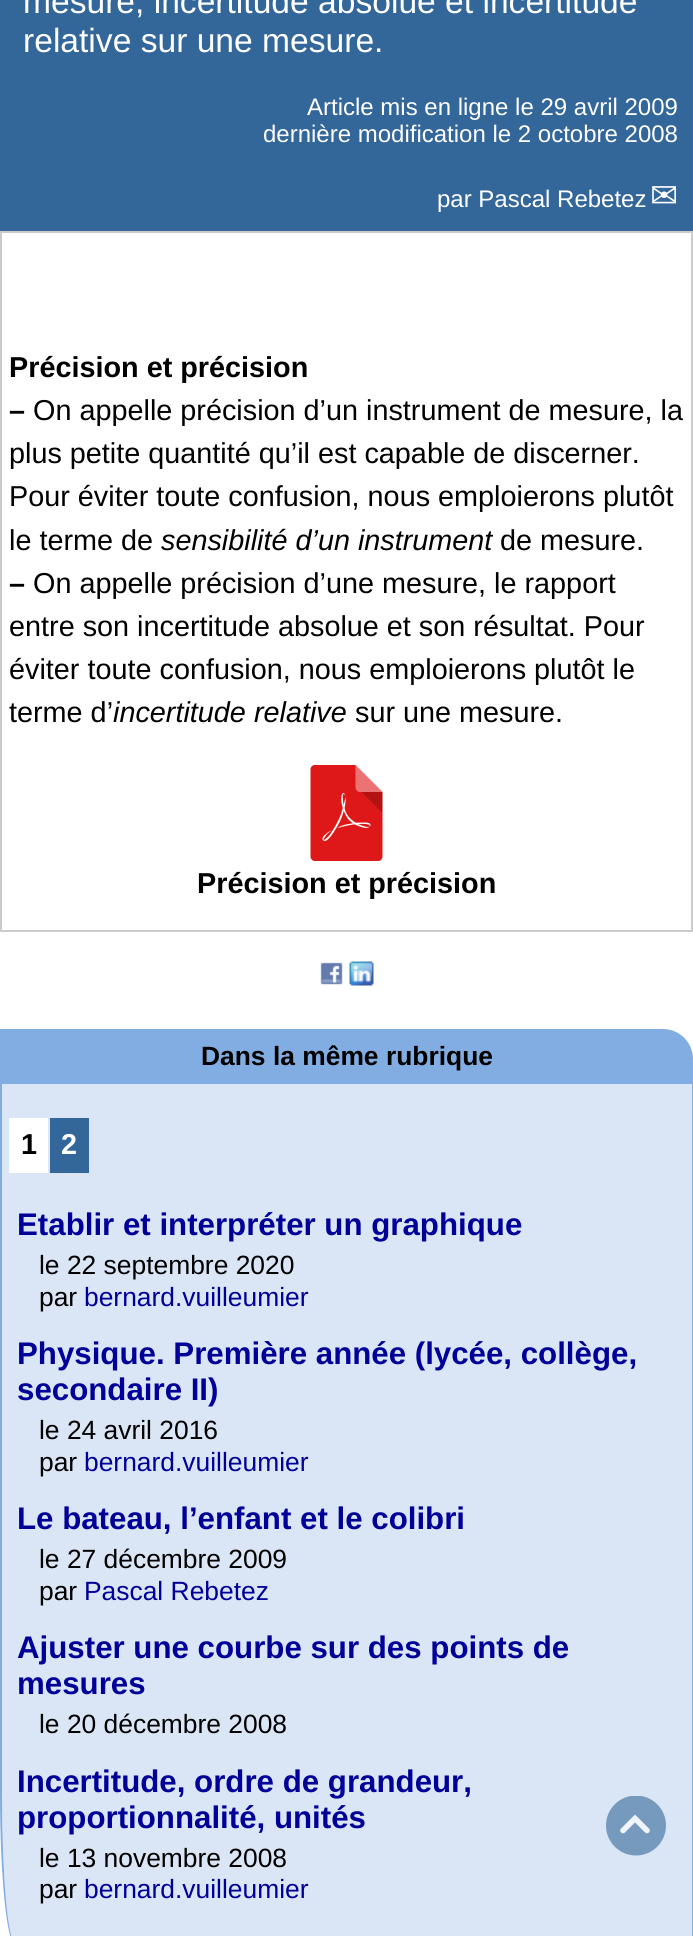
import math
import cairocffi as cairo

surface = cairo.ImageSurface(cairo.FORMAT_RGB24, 693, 1936)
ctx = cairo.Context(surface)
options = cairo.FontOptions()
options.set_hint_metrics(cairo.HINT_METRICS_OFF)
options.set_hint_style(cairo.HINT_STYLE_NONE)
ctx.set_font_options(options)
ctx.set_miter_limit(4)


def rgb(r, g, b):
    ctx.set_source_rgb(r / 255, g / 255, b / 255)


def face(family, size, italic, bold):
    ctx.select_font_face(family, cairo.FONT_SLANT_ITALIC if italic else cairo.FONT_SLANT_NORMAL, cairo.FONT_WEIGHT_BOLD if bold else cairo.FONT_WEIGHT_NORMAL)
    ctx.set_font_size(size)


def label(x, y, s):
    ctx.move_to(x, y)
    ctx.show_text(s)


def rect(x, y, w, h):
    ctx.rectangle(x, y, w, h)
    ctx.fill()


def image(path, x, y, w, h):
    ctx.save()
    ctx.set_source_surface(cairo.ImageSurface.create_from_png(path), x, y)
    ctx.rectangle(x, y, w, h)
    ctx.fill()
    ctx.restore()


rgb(255, 255, 255)
ctx.paint()
rgb(51, 102, 153)
rect(0, 0, 693, 231)
face('Liberation Sans', 33.6, 0, 0)
rgb(255, 255, 255)
label(23, 13, 'mesure, incertitude absolue et incertitude')
label(23, 52, 'relative sur une mesure.')
face('Liberation Sans', 24, 0, 0)
label(307, 115, 'Article mis en ligne le 29 avril 2009')
label(263, 142, 'dernière modification le 2 octobre 2008')
label(437, 207, 'par Pascal Rebetez')
face('DejaVu Sans', 33.6, 0, 0)
label(650, 207, '✉')
ctx.rectangle(1, 232, 691, 699)
rgb(204, 204, 204)
ctx.stroke()
face('Liberation Sans', 28.8, 0, 1)
rgb(0, 0, 0)
label(9, 377, 'Précision et précision')
label(9, 420, '–')
face('Liberation Sans', 28.8, 0, 0)
label(33, 420, 'On appelle précision d’un instrument de mesure, la')
label(9, 463, 'plus petite quantité qu’il est capable de discerner.')
label(9, 506, 'Pour éviter toute confusion, nous emploierons plutôt')
label(9, 550, 'le terme de')
face('Liberation Sans', 28.8, 1, 0)
label(161, 550, 'sensibilité d’un instrument')
face('Liberation Sans', 28.8, 0, 0)
label(500, 550, 'de mesure.')
face('Liberation Sans', 28.8, 0, 1)
label(9, 593, '–')
face('Liberation Sans', 28.8, 0, 0)
label(33, 593, 'On appelle précision d’une mesure, le rapport')
label(9, 636, 'entre son incertitude absolue et son résultat. Pour')
label(9, 679, 'éviter toute confusion, nous emploierons plutôt le')
label(9, 722, 'terme d’')
face('Liberation Sans', 28.8, 1, 0)
label(113, 722, 'incertitude relative')
face('Liberation Sans', 28.8, 0, 0)
label(355, 722, 'sur une mesure.')
image('image0.png', 310, 765, 73, 96)
face('Liberation Sans', 28.8, 0, 1)
label(197, 893, 'Précision et précision')
image('image1.png', 320, 962, 23, 23)
image('image2.png', 349, 961, 25, 25)
rgb(130, 173, 226)
ctx.new_path()
ctx.move_to(0, 1029)
ctx.line_to(663, 1029)
ctx.curve_to(679.5, 1029, 693, 1042.5, 693, 1059)
ctx.line_to(693, 1085)
ctx.line_to(0, 1085)
ctx.close_path()
ctx.fill()
face('Liberation Sans', 26.4, 0, 1)
rgb(0, 0, 0)
label(201, 1065, 'Dans la même rubrique')
rgb(218, 230, 246)
ctx.new_path()
ctx.move_to(2, 1084)
ctx.line_to(692, 1084)
ctx.line_to(692, 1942)
ctx.line_to(15, 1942)
ctx.curve_to(8, 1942, 2, 1876, 2, 1794)
ctx.close_path()
ctx.fill()
rgb(130, 173, 226)
ctx.set_fill_rule(cairo.FILL_RULE_EVEN_ODD)
ctx.new_path()
ctx.move_to(0, 1084)
ctx.line_to(693, 1084)
ctx.line_to(693, 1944)
ctx.line_to(15, 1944)
ctx.curve_to(7, 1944, 0, 1877, 0, 1794)
ctx.close_path()
ctx.move_to(2, 1084)
ctx.line_to(692, 1084)
ctx.line_to(692, 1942)
ctx.line_to(15, 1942)
ctx.curve_to(8, 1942, 2, 1876, 2, 1794)
ctx.close_path()
ctx.fill()
rgb(255, 255, 255)
rect(9, 1118, 39, 55)
face('Liberation Sans', 28.8, 0, 1)
rgb(0, 0, 0)
label(21, 1154, '1')
rgb(51, 102, 153)
rect(50, 1118, 39, 55)
rgb(255, 255, 255)
label(61, 1154, '2')
face('Liberation Sans', 31.25, 0, 1)
rgb(0, 0, 153)
label(17, 1235, 'Etablir et interpréter un graphique')
face('Liberation Sans', 26.4, 0, 0)
rgb(0, 0, 0)
label(39, 1274, 'le 22 septembre 2020')
label(39, 1306, 'par')
rgb(0, 0, 153)
label(84, 1306, 'bernard.vuilleumier')
face('Liberation Sans', 31.25, 0, 1)
label(17, 1364, 'Physique. Première année (lycée, collège,')
label(17, 1400, 'secondaire II)')
face('Liberation Sans', 26.4, 0, 0)
rgb(0, 0, 0)
label(39, 1439, 'le 24 avril 2016')
label(39, 1471, 'par')
rgb(0, 0, 153)
label(84, 1471, 'bernard.vuilleumier')
face('Liberation Sans', 31.25, 0, 1)
label(17, 1529, 'Le bateau, l’enfant et le colibri')
face('Liberation Sans', 26.4, 0, 0)
rgb(0, 0, 0)
label(39, 1568, 'le 27 décembre 2009')
label(39, 1600, 'par')
rgb(0, 0, 153)
label(84, 1600, 'Pascal Rebetez')
face('Liberation Sans', 31.25, 0, 1)
label(17, 1658, 'Ajuster une courbe sur des points de')
label(17, 1694, 'mesures')
face('Liberation Sans', 26.4, 0, 0)
rgb(0, 0, 0)
label(39, 1733, 'le 20 décembre 2008')
face('Liberation Sans', 31.25, 0, 1)
rgb(0, 0, 153)
label(17, 1792, 'Incertitude, ordre de grandeur,')
label(17, 1828, 'proportionnalité, unités')
face('Liberation Sans', 26.4, 0, 0)
rgb(0, 0, 0)
label(39, 1867, 'le 13 novembre 2008')
label(39, 1898, 'par')
rgb(0, 0, 153)
label(84, 1898, 'bernard.vuilleumier')
ctx.save()
ctx.set_fill_rule(cairo.FILL_RULE_WINDING)
ctx.rectangle(606, 1796, 60, 60)
ctx.clip()
rgb(118, 153, 190)
ctx.arc(636, 1825.5, 30, 0, 2 * math.pi)
ctx.fill()
ctx.restore()
ctx.new_path()
ctx.move_to(623, 1830.5)
ctx.line_to(635, 1818.5)
ctx.line_to(647, 1830.5)
rgb(240, 245, 251)
ctx.set_line_width(5.6)
ctx.set_line_cap(cairo.LINE_CAP_ROUND)
ctx.stroke()
surface.write_to_png('render.png')
